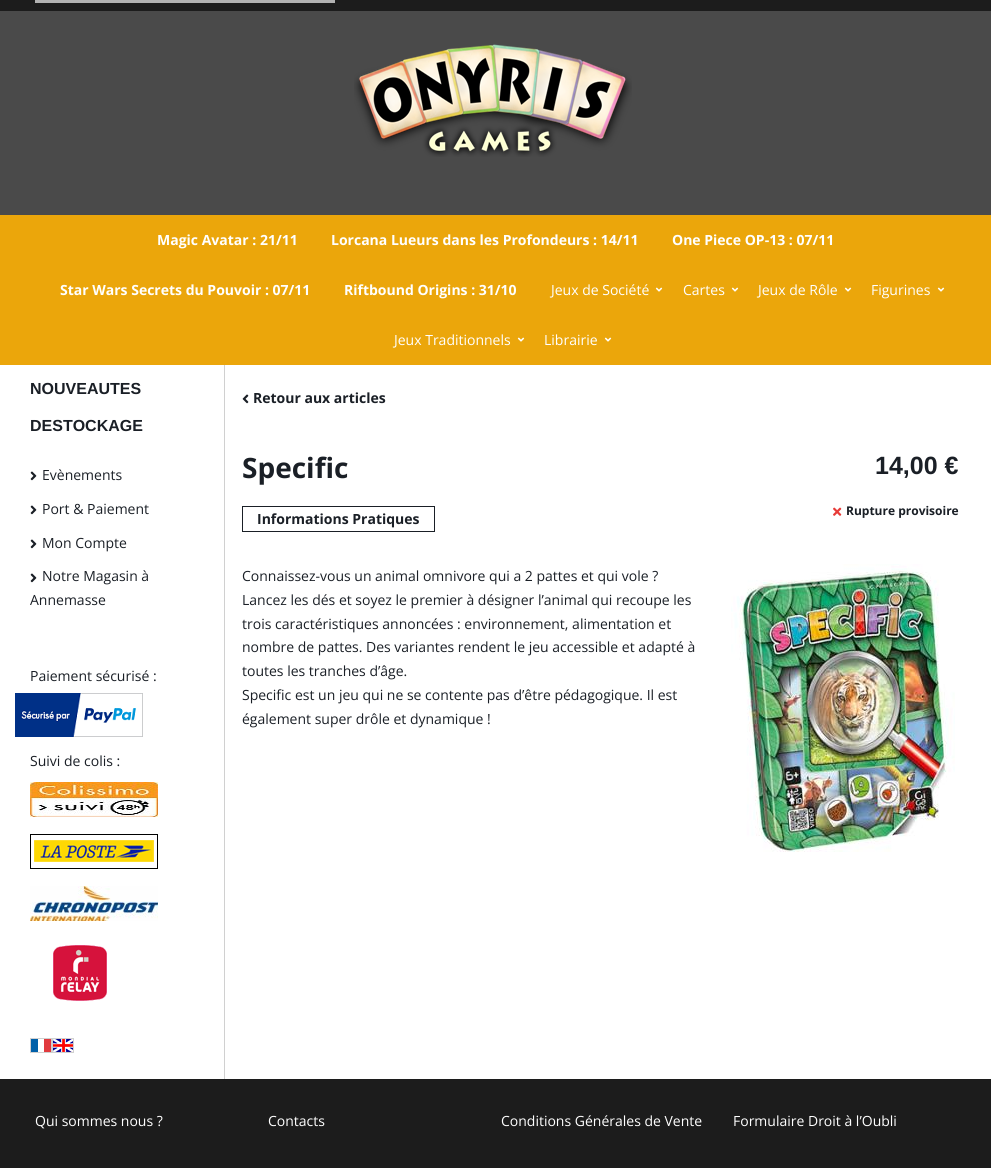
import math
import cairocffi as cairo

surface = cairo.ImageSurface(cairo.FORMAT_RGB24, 991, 1168)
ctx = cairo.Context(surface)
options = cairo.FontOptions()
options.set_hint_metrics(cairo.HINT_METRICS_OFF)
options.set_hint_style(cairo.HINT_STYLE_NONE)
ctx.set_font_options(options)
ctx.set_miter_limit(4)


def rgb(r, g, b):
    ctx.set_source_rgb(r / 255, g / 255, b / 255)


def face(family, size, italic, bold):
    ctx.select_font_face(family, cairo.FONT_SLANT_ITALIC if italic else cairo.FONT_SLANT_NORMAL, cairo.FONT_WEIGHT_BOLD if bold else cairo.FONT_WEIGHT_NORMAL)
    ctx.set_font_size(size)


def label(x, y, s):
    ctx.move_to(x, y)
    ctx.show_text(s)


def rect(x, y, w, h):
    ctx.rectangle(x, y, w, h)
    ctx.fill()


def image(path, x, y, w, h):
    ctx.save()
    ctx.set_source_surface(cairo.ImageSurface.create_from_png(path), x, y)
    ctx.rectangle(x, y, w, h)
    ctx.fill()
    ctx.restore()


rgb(255, 255, 255)
ctx.paint()
rgb(74, 74, 74)
rect(0, 11, 991, 204)
rgb(28, 28, 28)
rect(0, 0, 991, 11)
rgb(178, 178, 178)
rect(35, 0, 300, 3)
image('image0.png', 354, 44, 278, 113)
rgb(235, 166, 11)
rect(0, 215, 991, 150)
face('Open Sans', 14, 0, 1)
rgb(255, 255, 255)
label(157, 245, 'Magic Avatar : 21/11')
label(331, 245, 'Lorcana Lueurs dans les Profondeurs : 14/11')
label(672, 245, 'One Piece OP-13 : 07/11')
label(60, 295, 'Star Wars Secrets du Pouvoir : 07/11')
label(344, 295, 'Riftbound Origins : 31/10')
face('Open Sans', 14, 0, 0)
label(551, 295, 'Jeux de Société')
image('image1.png', 655, 287, 8, 5)
label(683, 295, 'Cartes')
image('image1.png', 731, 287, 8, 5)
label(758, 295, 'Jeux de Rôle')
image('image1.png', 844, 287, 8, 5)
label(871, 295, 'Figurines')
image('image1.png', 937, 287, 8, 5)
label(394, 345, 'Jeux Traditionnels')
image('image1.png', 517, 337, 8, 5)
label(544, 345, 'Librairie')
image('image1.png', 604, 337, 8, 5)
rgb(208, 208, 208)
rect(224, 365, 1, 714)
face('Liberation Sans', 16, 0, 1)
rgb(26, 31, 38)
label(30, 394, 'NOUVEAUTES')
label(30, 431, 'DESTOCKAGE')
image('image2.png', 30, 471, 7, 10)
face('Open Sans', 14, 0, 0)
label(42, 480, 'Evènements')
image('image2.png', 30, 505, 7, 10)
label(42, 514, 'Port & Paiement')
image('image2.png', 30, 539, 7, 10)
label(42, 548, 'Mon Compte')
image('image2.png', 30, 573, 7, 10)
label(42, 581, 'Notre Magasin à')
label(30, 605, 'Annemasse')
label(30, 681, 'Paiement sécurisé :')
image('image3.png', 15, 693, 128, 44)
label(30, 766, 'Suivi de colis :')
image('image4.png', 30, 782, 128, 35)
image('image5.png', 30, 834, 128, 35)
image('image6.png', 30, 886, 128, 35)
image('image7.png', 53, 945, 54, 56)
image('image8.png', 31, 1039, 20, 13)
ctx.rectangle(30.5, 1038.5, 21, 14)
rgb(208, 208, 208)
ctx.set_line_width(1)
ctx.stroke()
image('image9.png', 53, 1039, 20, 13)
ctx.rectangle(52.5, 1038.5, 21, 14)
ctx.stroke()
image('image10.png', 242, 394, 7, 10)
face('Open Sans', 14, 0, 1)
rgb(26, 31, 38)
label(253, 403, 'Retour aux articles')
face('Open Sans', 28, 0, 1)
label(242, 478, 'Specific')
ctx.rectangle(242.5, 506.5, 192, 25)
ctx.stroke()
face('Open Sans', 14, 0, 1)
label(257, 524, 'Informations Pratiques')
face('Liberation Sans', 25, 0, 1)
label(875, 474, '14,00 €')
image('image11.png', 833, 507, 9, 9)
face('Open Sans', 12, 0, 1)
label(846, 515, 'Rupture provisoire')
face('Open Sans', 14, 0, 0)
label(242, 581, 'Connaissez-vous un animal omnivore qui a 2 pattes et qui vole ?')
image('image12.png', 731, 564, 224, 288)
label(242, 605, 'Lancez les dés et soyez le premier à désigner l’animal qui recoupe les')
label(242, 629, 'trois caractéristiques annoncées : environnement, alimentation et')
label(242, 652, 'nombre de pattes. Des variantes rendent le jeu accessible et adapté à')
label(242, 676, 'toutes les tranches d’âge.')
label(242, 700, 'Specific est un jeu qui ne se contente pas d’être pédagogique. Il est')
label(242, 724, 'également super drôle et dynamique !')
rgb(28, 28, 28)
rect(0, 1079, 991, 89)
rgb(255, 255, 255)
label(35, 1126, 'Qui sommes nous ?')
label(268, 1126, 'Contacts')
label(501, 1126, 'Conditions Générales de Vente')
label(733, 1126, 'Formulaire Droit à l’Oubli')
surface.write_to_png('render.png')
